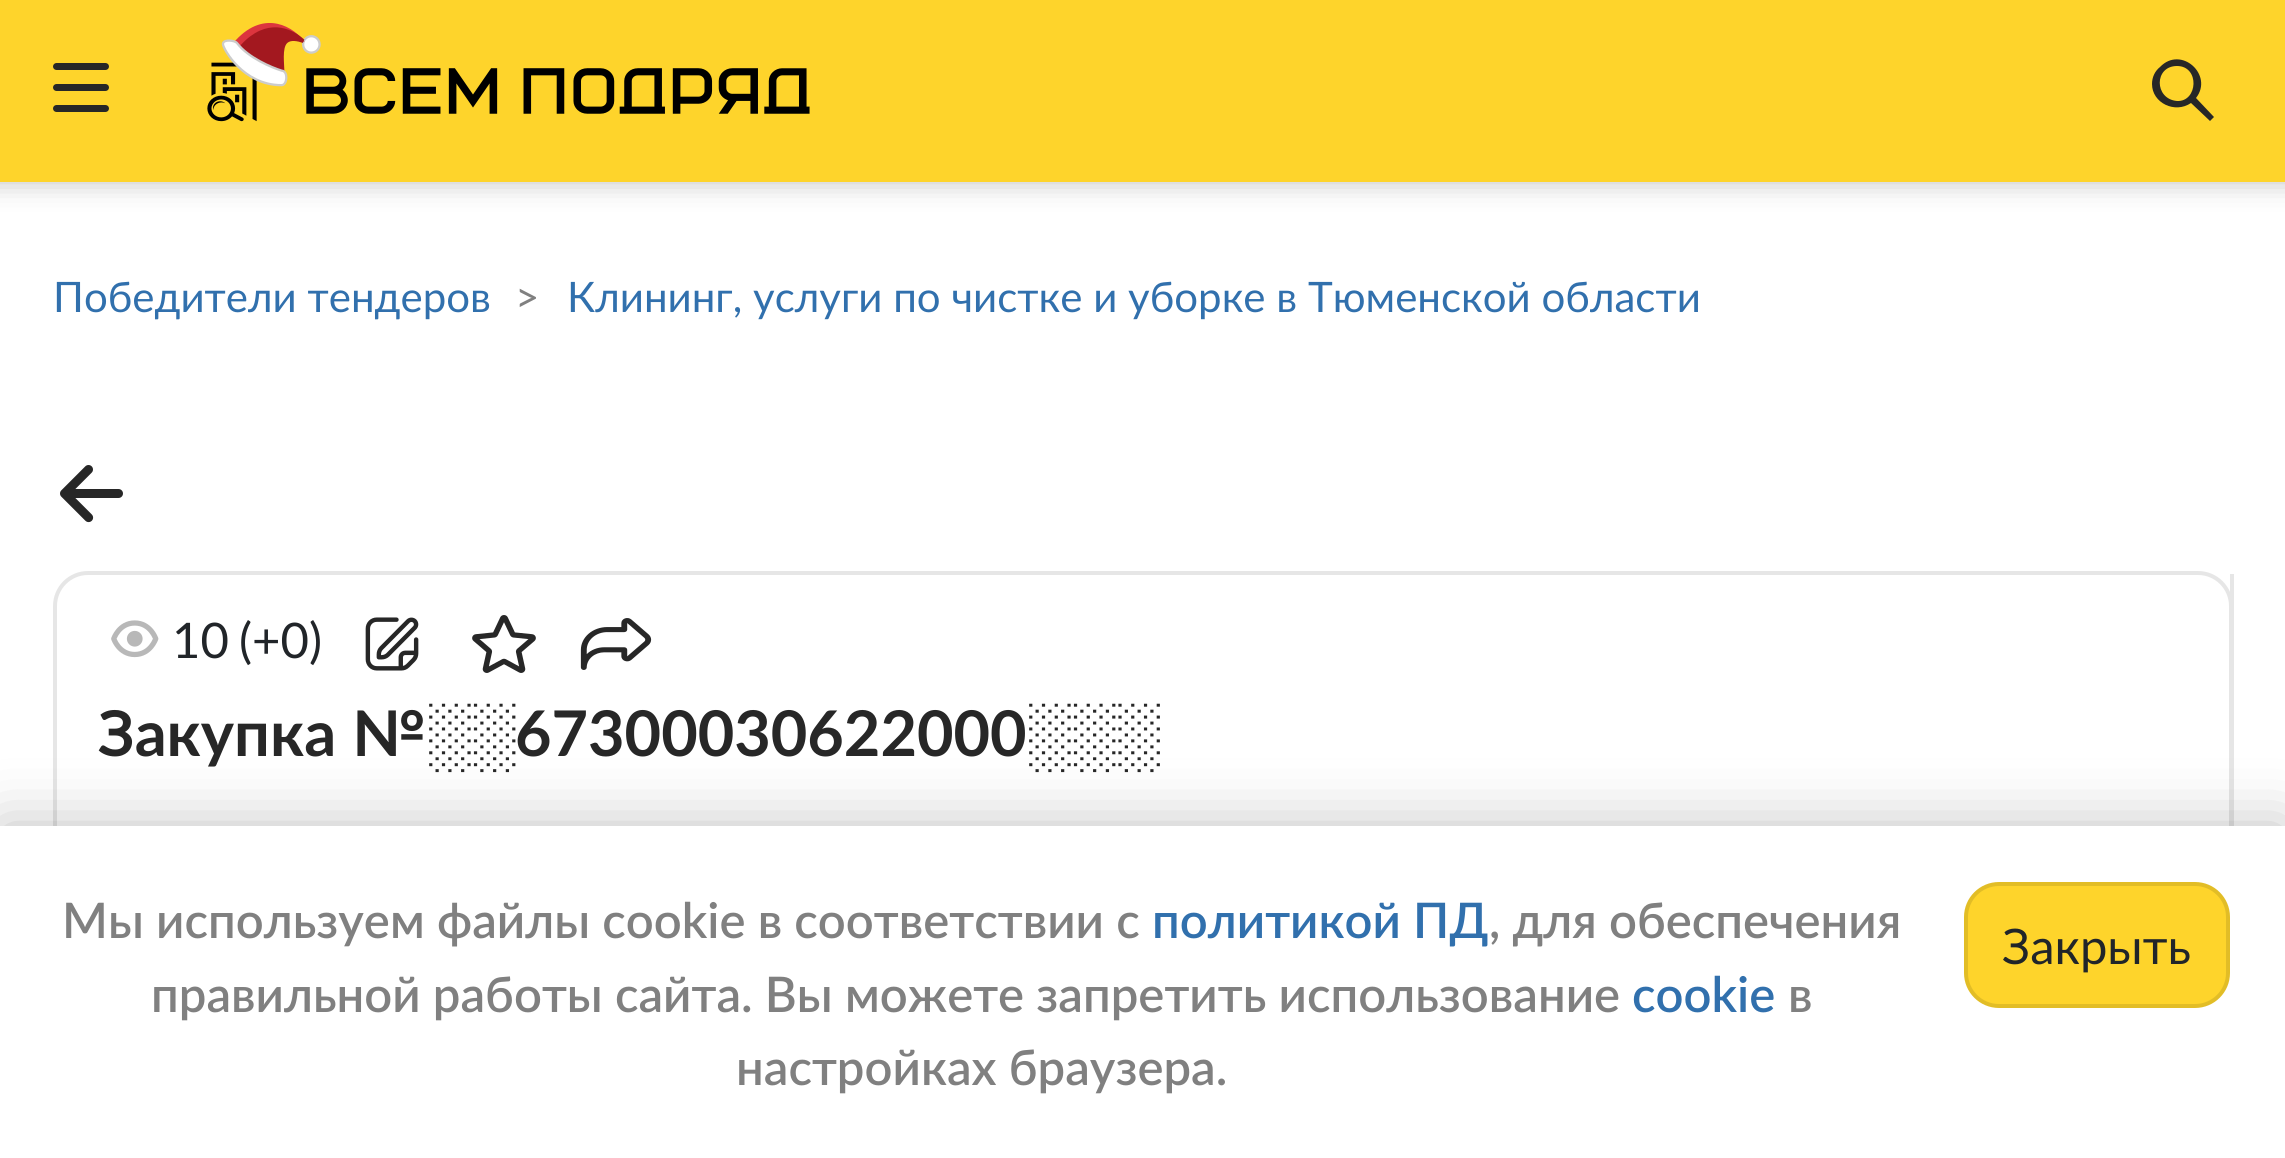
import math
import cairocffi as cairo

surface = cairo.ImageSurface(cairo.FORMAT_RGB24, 2285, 1158)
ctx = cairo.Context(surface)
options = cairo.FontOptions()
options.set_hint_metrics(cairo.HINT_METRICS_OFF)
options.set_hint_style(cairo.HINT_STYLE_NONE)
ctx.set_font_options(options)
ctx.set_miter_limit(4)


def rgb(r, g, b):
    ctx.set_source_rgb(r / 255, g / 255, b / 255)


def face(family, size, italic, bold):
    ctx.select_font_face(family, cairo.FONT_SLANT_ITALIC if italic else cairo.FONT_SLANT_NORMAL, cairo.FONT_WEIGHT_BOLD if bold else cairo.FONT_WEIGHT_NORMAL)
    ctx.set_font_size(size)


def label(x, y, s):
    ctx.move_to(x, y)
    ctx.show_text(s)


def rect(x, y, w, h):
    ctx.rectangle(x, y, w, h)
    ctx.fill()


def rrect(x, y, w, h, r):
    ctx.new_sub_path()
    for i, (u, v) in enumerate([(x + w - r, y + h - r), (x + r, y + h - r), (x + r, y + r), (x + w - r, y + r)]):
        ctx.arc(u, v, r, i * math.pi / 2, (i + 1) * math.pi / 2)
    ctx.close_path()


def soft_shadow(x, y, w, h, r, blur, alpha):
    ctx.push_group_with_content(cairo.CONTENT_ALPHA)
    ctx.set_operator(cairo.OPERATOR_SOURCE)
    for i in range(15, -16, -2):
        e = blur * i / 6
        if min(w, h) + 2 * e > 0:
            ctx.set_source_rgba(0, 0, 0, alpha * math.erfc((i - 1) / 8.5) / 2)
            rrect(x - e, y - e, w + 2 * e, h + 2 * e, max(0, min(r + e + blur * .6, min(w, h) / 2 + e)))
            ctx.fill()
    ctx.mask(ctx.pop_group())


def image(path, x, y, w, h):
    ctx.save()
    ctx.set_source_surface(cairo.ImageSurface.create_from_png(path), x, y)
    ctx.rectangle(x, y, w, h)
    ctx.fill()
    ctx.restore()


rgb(255, 255, 255)
ctx.paint()
rgb(0, 0, 0)
soft_shadow(-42, 0, 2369, 182, 0, 14, 0.25)
rgb(254, 212, 43)
rect(0, 0, 2285, 182)
rgb(39, 39, 39)
rrect(53, 84, 56, 7, 3.5)
ctx.fill()
rrect(53, 63, 56, 7, 3.5)
ctx.fill()
rrect(53, 105, 56, 7, 3.5)
ctx.fill()
image('image0.png', 207, 23, 603, 99)
ctx.set_fill_rule(cairo.FILL_RULE_EVEN_ODD)
ctx.new_path()
ctx.move_to(2177, 66)
ctx.curve_to(2154, 66, 2154, 99, 2177, 101)
ctx.curve_to(2198, 102, 2200, 66, 2177, 66)
ctx.close_path()
ctx.move_to(2152, 84)
ctx.curve_to(2152, 77, 2155, 71, 2160, 67)
ctx.curve_to(2181, 45, 2214, 75, 2196, 98)
ctx.line_to(2214, 117)
ctx.line_to(2210, 121)
ctx.line_to(2191, 103)
ctx.curve_to(2175, 114, 2152, 103, 2152, 84)
ctx.close_path()
ctx.fill()
face('Lato', 42, 0, 0)
rgb(49, 112, 173)
label(53, 312, 'Победители тендеров')
rgb(128, 128, 128)
label(515, 312, '>')
rgb(49, 112, 173)
label(567, 312, 'Клининг, услуги по чистке и уборке в Тюменской области')
image('image1.png', 60, 465, 63, 58)
rrect(55, 573, 2176, 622, 33)
rgb(230, 230, 230)
ctx.set_line_width(4)
ctx.stroke()
rect(2230, 574, 4, 252)
image('image2.png', 111, 620, 48, 38)
face('Lato', 49, 0, 0)
rgb(33, 37, 41)
label(172, 658, '10')
label(239, 658, '(+0)')
image('image3.png', 365, 617, 54, 54)
image('image4.png', 472, 615, 64, 58)
image('image5.png', 580, 618, 72, 52)
face('Lato', 63, 0, 1)
rgb(39, 39, 39)
label(98, 756, 'Закупка №')
face('Liberation Sans', 63, 0, 1)
label(426, 756, '░░')
face('Lato', 63, 0, 1)
label(515, 756, '67300030622000')
face('Liberation Sans', 63, 0, 1)
label(1026, 756, '░░░')
rgb(0, 0, 0)
soft_shadow(0, 826, 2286, 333, 0, 31.5, 0.25)
rgb(255, 255, 255)
rect(0, 826, 2285, 332)
face('Lato SemiBold', 49, 0, 0)
rgb(128, 128, 128)
label(62, 938, 'Мы используем файлы cookie в соответствии с')
rgb(49, 112, 173)
label(1152, 938, 'политикой ПД')
rgb(128, 128, 128)
label(1489, 938, ', для обеспечения')
label(151, 1012, 'правильной работы сайта. Вы можете запретить использование')
rgb(49, 112, 173)
label(1632, 1012, 'cookie')
rgb(128, 128, 128)
label(1788, 1012, 'в')
label(736, 1085, 'настройках браузера.')
rgb(254, 212, 43)
rrect(1966, 884, 262, 122, 33)
ctx.fill_preserve()
rgb(226, 189, 38)
ctx.stroke()
face('Lato', 49, 0, 0)
rgb(33, 37, 41)
label(2002, 964, 'Закрыть')
surface.write_to_png('render.png')
